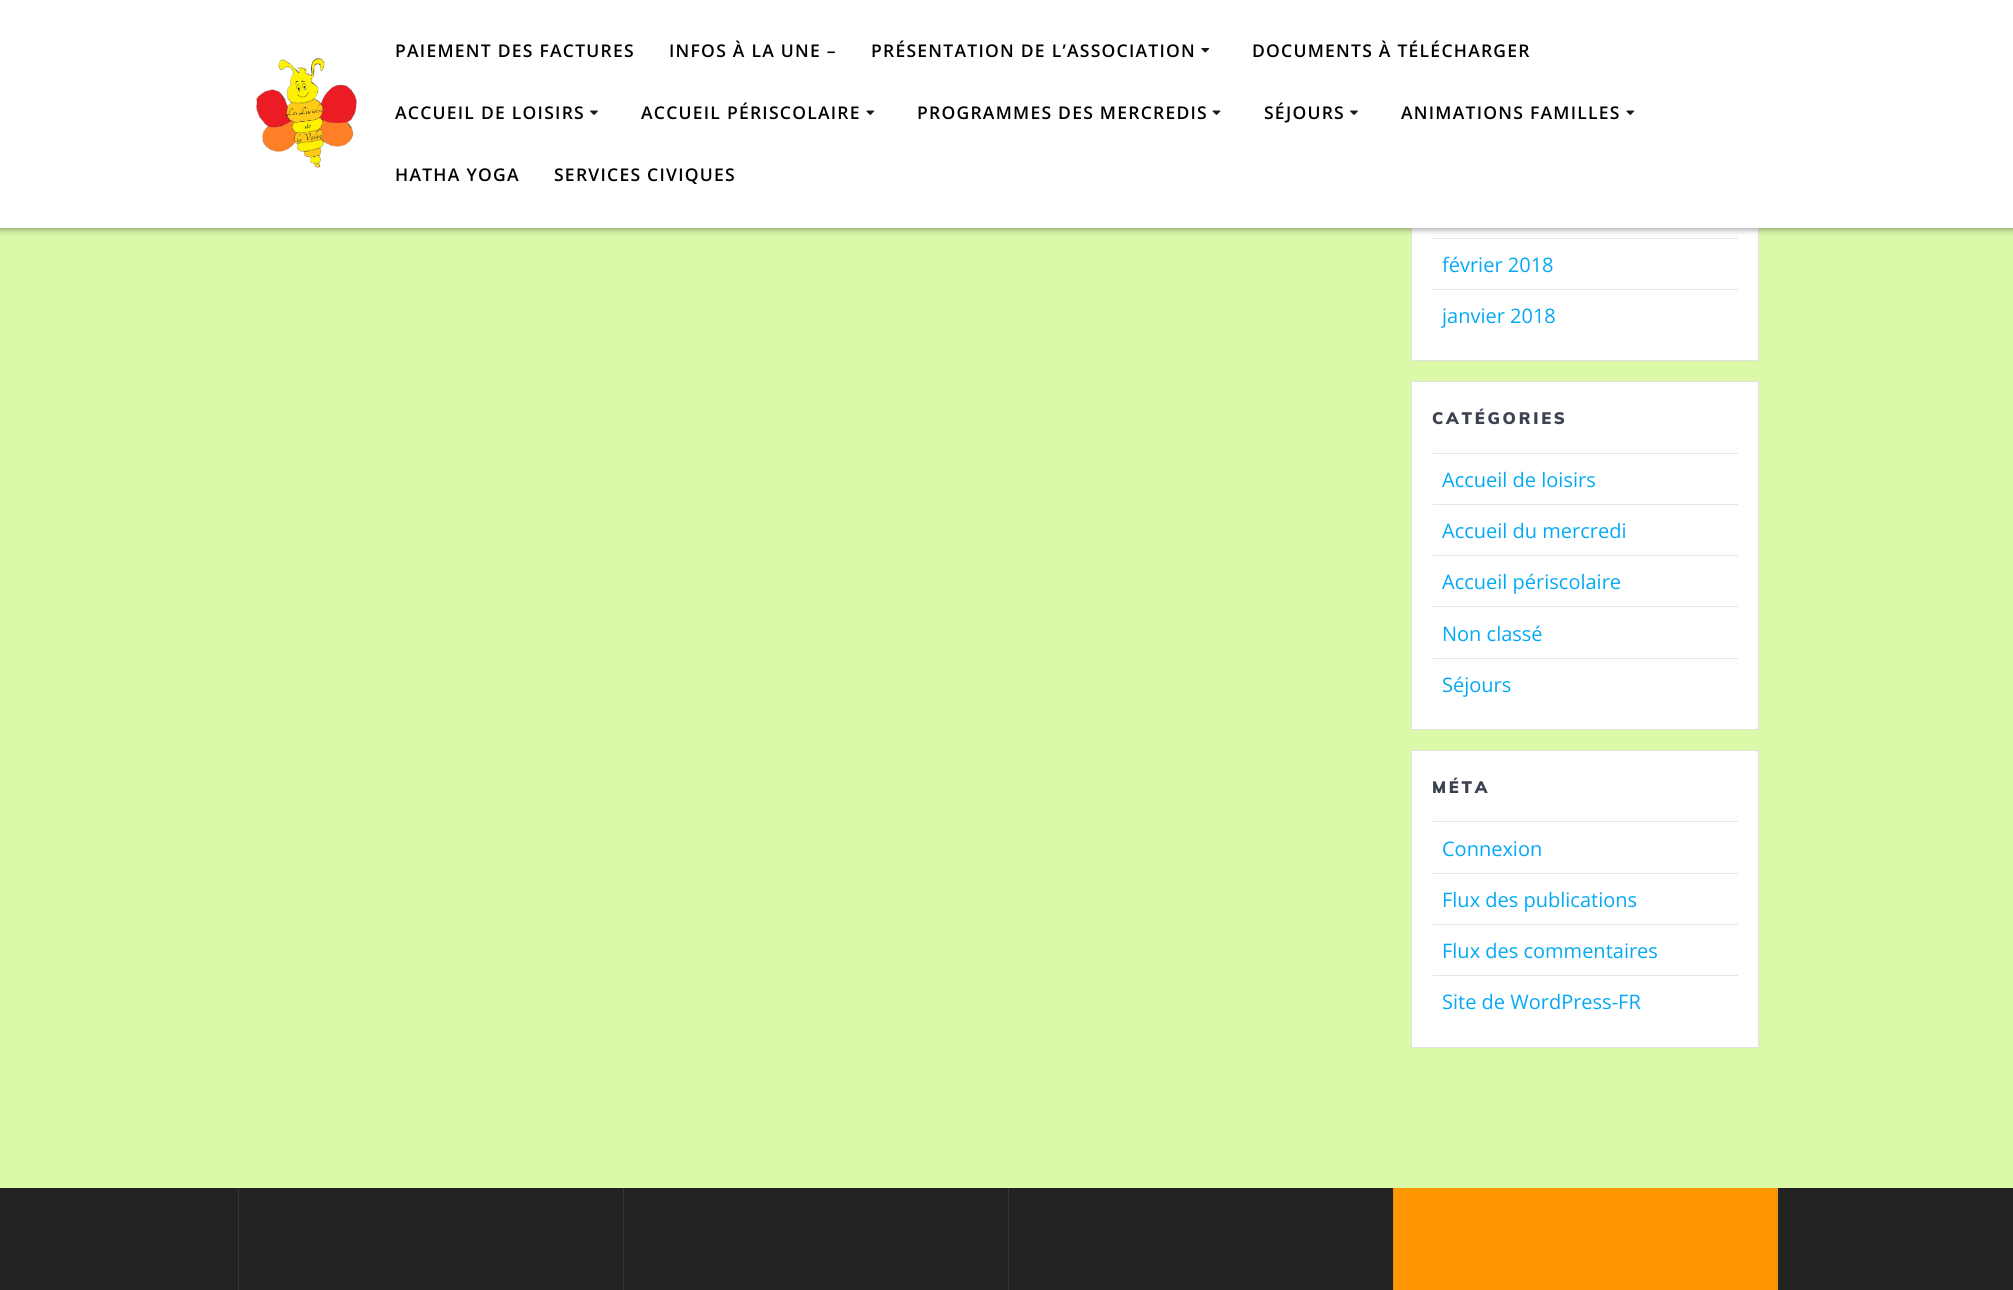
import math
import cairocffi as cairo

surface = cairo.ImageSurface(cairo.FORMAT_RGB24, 2013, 1290)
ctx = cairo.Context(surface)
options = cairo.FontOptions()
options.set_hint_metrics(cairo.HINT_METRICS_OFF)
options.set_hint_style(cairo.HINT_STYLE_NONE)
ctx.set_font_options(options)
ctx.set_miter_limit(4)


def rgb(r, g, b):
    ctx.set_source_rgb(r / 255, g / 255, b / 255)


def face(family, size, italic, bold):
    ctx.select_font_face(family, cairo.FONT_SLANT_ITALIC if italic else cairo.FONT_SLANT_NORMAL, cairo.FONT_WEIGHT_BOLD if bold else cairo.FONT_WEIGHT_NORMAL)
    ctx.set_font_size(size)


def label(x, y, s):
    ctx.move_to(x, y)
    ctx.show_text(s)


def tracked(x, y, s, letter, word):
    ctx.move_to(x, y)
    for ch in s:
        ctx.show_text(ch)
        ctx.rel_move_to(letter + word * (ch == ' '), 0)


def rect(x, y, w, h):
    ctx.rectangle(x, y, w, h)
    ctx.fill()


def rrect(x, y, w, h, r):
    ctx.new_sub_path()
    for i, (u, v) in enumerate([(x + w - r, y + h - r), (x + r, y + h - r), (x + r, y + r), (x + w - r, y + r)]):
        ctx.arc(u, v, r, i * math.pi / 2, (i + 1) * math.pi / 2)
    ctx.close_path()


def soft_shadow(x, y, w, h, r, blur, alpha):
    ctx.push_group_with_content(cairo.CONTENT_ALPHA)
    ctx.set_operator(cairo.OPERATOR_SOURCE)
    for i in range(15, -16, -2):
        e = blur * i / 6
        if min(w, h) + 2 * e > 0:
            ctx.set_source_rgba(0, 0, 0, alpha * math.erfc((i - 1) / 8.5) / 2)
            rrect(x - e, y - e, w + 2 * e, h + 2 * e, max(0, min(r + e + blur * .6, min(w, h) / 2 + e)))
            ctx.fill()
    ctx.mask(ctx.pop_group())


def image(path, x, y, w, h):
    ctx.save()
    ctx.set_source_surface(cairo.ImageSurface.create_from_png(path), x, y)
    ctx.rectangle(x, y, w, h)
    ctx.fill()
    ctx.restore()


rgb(219, 249, 169)
ctx.paint()
rgb(255, 255, 255)
rect(1412, 228, 346, 132)
ctx.rectangle(1411.5, -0.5, 347, 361)
rgb(224, 225, 225)
ctx.set_line_width(1)
ctx.stroke()
rgb(230, 230, 230)
rect(1433, 238, 305, 1)
rgb(0, 0, 0)
soft_shadow(-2, -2, 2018, 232, 0, 3, 0.33)
rgb(255, 255, 255)
rect(0, 0, 2013, 228)
image('image0.png', 256, 58, 101, 110)
face('Open Sans SemiBold', 17.5, 0, 0)
rgb(0, 0, 0)
tracked(395, 57, 'PAIEMENT DES FACTURES', 1.25, 0)
tracked(669, 57, 'INFOS À LA UNE –', 1.25, 0)
tracked(871, 57, 'PRÉSENTATION DE L’ASSOCIATION', 1.25, 0)
image('image1.png', 1201, 48, 9, 5)
tracked(1252, 57, 'DOCUMENTS À TÉLÉCHARGER', 1.25, 0)
tracked(395, 119, 'ACCUEIL DE LOISIRS', 1.25, 0)
image('image2.png', 590, 110, 8, 5)
tracked(641, 119, 'ACCUEIL PÉRISCOLAIRE', 1.25, 0)
image('image3.png', 866, 110, 9, 5)
tracked(917, 119, 'PROGRAMMES DES MERCREDIS', 1.25, 0)
image('image4.png', 1212, 110, 9, 5)
tracked(1264, 119, 'SÉJOURS', 1.25, 0)
image('image2.png', 1350, 110, 8, 5)
tracked(1401, 119, 'ANIMATIONS FAMILLES', 1.25, 0)
image('image3.png', 1626, 110, 9, 5)
tracked(395, 181, 'HATHA YOGA', 1.25, 0)
tracked(554, 181, 'SERVICES CIVIQUES', 1.25, 0)
face('Open Sans', 20, 0, 0)
rgb(3, 169, 244)
label(1442, 272, 'février 2018')
rgb(230, 230, 230)
rect(1433, 289, 305, 1)
rgb(3, 169, 244)
label(1442, 323, 'janvier 2018')
rgb(255, 255, 255)
ctx.rectangle(1411.5, 381.5, 347, 348)
ctx.fill_preserve()
rgb(224, 225, 225)
ctx.stroke()
face('Muli Black', 16.5, 0, 0)
rgb(60, 66, 79)
tracked(1432, 424, 'CATÉGORIES', 2.75, 0)
rgb(230, 230, 230)
rect(1433, 453, 305, 1)
face('Open Sans', 20, 0, 0)
rgb(3, 169, 244)
label(1442, 487, 'Accueil de loisirs')
rgb(230, 230, 230)
rect(1433, 504, 305, 1)
rgb(3, 169, 244)
label(1442, 538, 'Accueil du mercredi')
rgb(230, 230, 230)
rect(1433, 555, 305, 1)
rgb(3, 169, 244)
label(1442, 589, 'Accueil périscolaire')
rgb(230, 230, 230)
rect(1433, 606, 305, 1)
rgb(3, 169, 244)
label(1442, 641, 'Non classé')
rgb(230, 230, 230)
rect(1433, 658, 305, 1)
rgb(3, 169, 244)
label(1442, 692, 'Séjours')
rgb(255, 255, 255)
ctx.rectangle(1411.5, 750.5, 347, 297)
ctx.fill_preserve()
rgb(224, 225, 225)
ctx.stroke()
face('Muli Black', 16.5, 0, 0)
rgb(60, 66, 79)
tracked(1432, 793, 'MÉTA', 2.75, 0)
rgb(230, 230, 230)
rect(1433, 821, 305, 1)
face('Open Sans', 20, 0, 0)
rgb(3, 169, 244)
label(1442, 856, 'Connexion')
rgb(230, 230, 230)
rect(1433, 873, 305, 1)
rgb(3, 169, 244)
label(1442, 907, 'Flux des publications')
rgb(230, 230, 230)
rect(1433, 924, 305, 1)
rgb(3, 169, 244)
label(1442, 958, 'Flux des commentaires')
rgb(230, 230, 230)
rect(1433, 975, 305, 1)
rgb(3, 169, 244)
label(1442, 1009, 'Site de WordPress-FR')
rgb(34, 34, 34)
rect(0, 1188, 2013, 102)
rgb(53, 53, 53)
rect(238, 1188, 1, 102)
rect(623, 1188, 1, 102)
rect(1008, 1188, 1, 102)
rgb(255, 152, 0)
rect(1394, 1188, 384, 102)
rgb(230, 147, 26)
rect(1776, 1188, 1, 102)
rect(1393, 1188, 1, 102)
surface.write_to_png('render.png')
